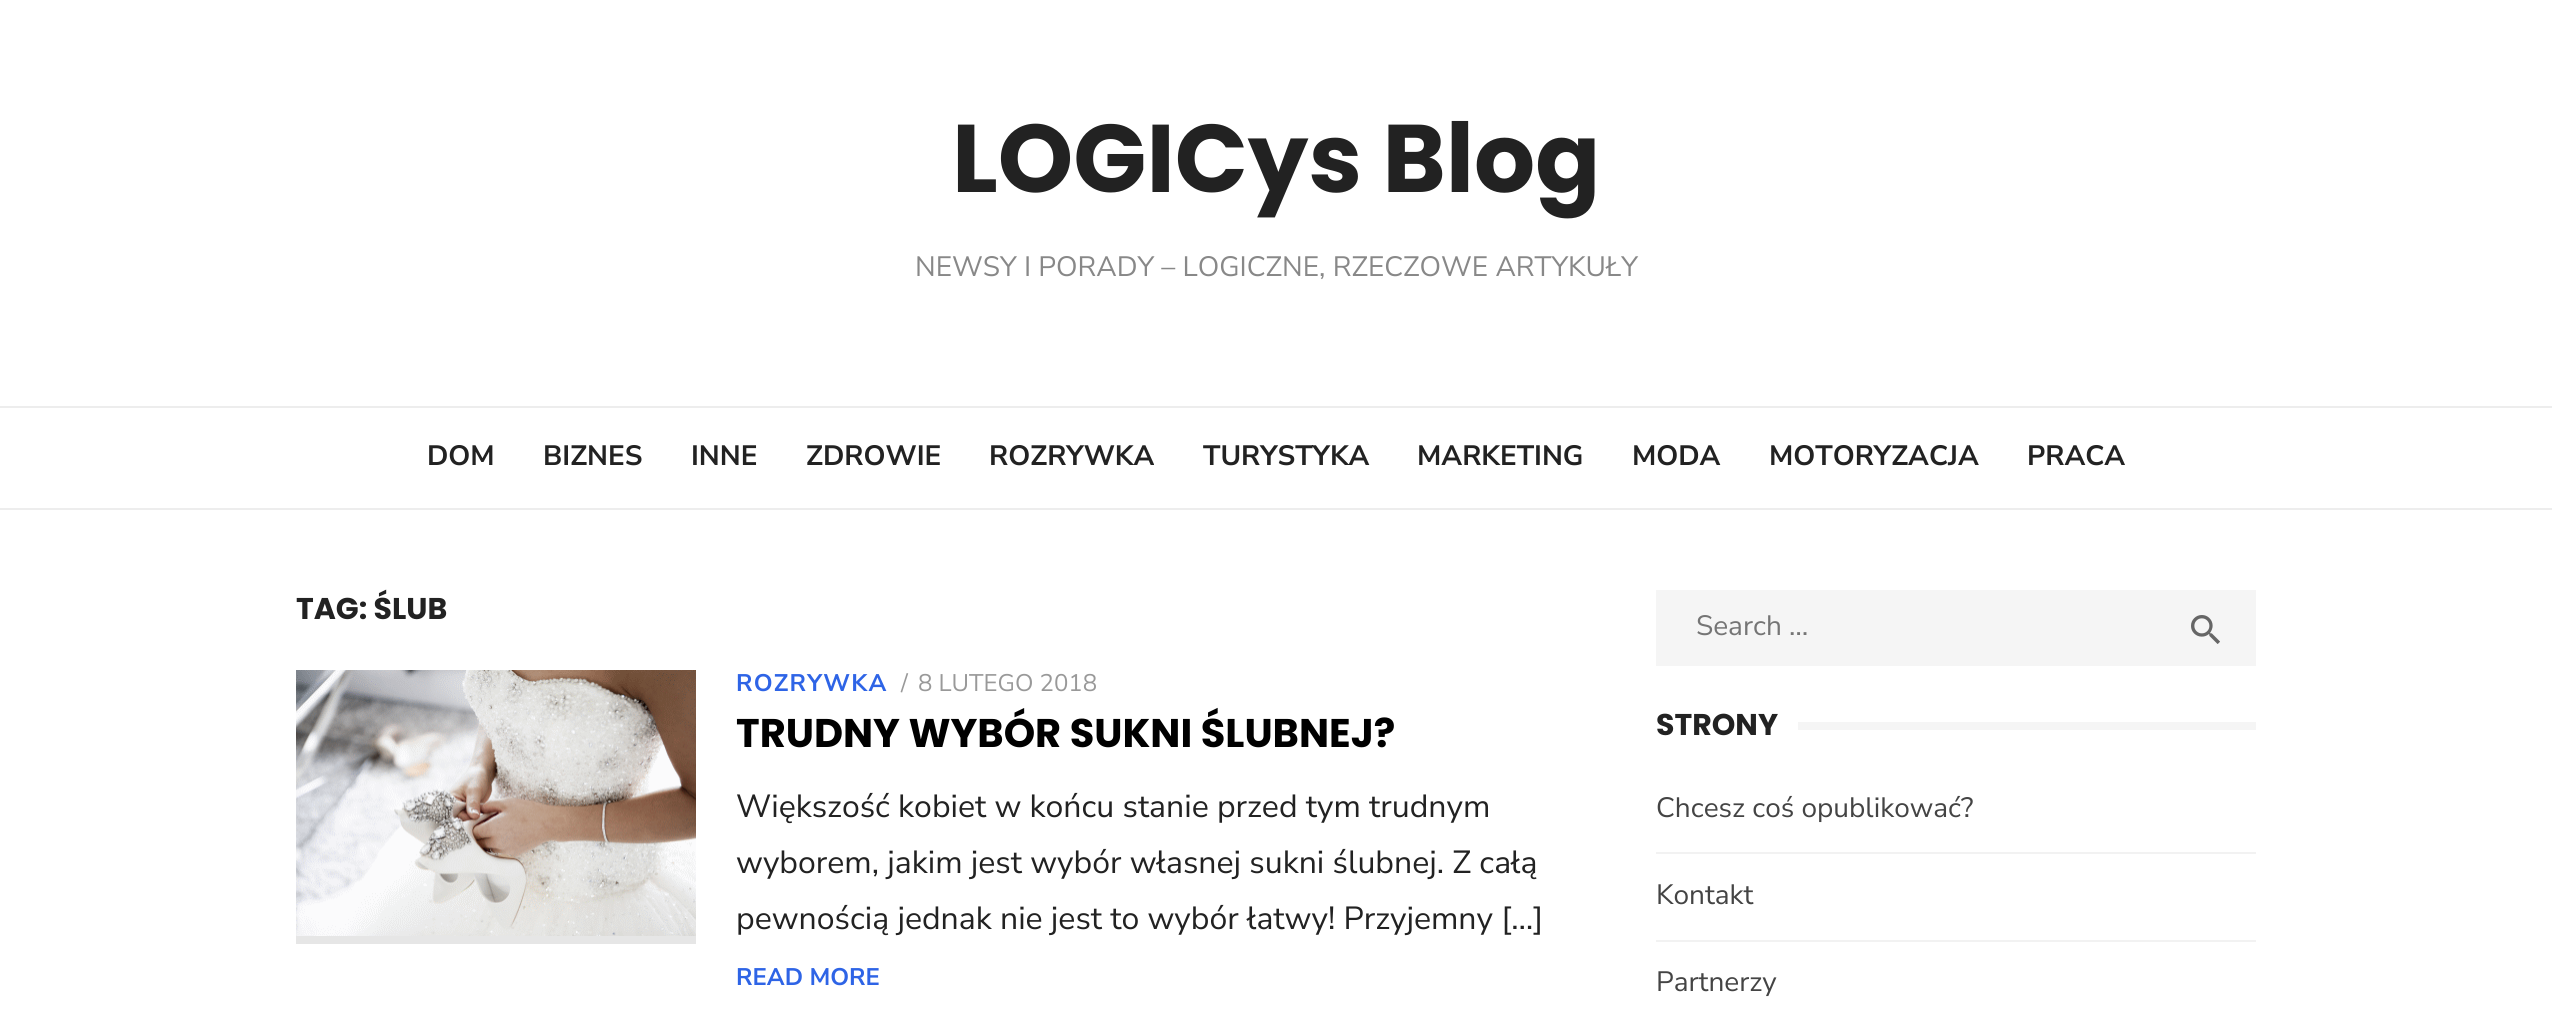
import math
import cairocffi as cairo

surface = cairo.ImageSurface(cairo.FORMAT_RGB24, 2552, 1013)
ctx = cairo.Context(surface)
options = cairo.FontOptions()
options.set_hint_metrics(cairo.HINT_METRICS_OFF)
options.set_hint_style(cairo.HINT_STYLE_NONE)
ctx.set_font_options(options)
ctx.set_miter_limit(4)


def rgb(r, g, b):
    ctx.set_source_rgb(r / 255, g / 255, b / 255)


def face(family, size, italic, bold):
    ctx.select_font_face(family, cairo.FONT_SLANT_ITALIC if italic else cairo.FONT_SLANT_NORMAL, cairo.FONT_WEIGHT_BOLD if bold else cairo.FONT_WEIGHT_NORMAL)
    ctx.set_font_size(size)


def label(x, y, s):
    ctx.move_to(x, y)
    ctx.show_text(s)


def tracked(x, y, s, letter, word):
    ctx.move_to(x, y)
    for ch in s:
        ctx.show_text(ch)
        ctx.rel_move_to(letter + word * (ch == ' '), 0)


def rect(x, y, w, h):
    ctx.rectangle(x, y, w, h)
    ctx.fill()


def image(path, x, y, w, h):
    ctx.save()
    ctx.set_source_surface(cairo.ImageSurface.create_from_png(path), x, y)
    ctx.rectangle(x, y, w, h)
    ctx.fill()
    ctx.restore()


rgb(255, 255, 255)
ctx.paint()
face('Poppins', 96, 0, 1)
rgb(34, 34, 34)
label(952, 192, 'LOGICys Blog')
face('Nunito Sans', 28, 0, 0)
rgb(136, 136, 136)
label(915, 276, 'NEWSY I PORADY – LOGICZNE, RZECZOWE ARTYKUŁY')
rgb(237, 237, 237)
rect(0, 406, 2552, 2)
rect(0, 508, 2552, 2)
face('Nunito Sans', 28, 0, 1)
rgb(34, 34, 34)
label(427, 465, 'DOM')
label(543, 465, 'BIZNES')
label(691, 465, 'INNE')
label(806, 465, 'ZDROWIE')
label(989, 465, 'ROZRYWKA')
label(1203, 465, 'TURYSTYKA')
label(1417, 465, 'MARKETING')
label(1632, 465, 'MODA')
label(1769, 465, 'MOTORYZACJA')
label(2027, 465, 'PRACA')
face('Poppins', 30, 0, 1)
label(296, 619, 'TAG: ŚLUB')
rgb(230, 230, 230)
rect(296, 936, 400, 8)
image('image0.png', 296, 670, 400, 266)
face('Nunito Sans', 24, 0, 1)
rgb(46, 100, 230)
tracked(736, 691, 'ROZRYWKA', 1.25, 0)
face('Nunito Sans', 24, 0, 0)
rgb(153, 153, 153)
label(901, 691, '/')
label(918, 691, '8 LUTEGO 2018')
face('Poppins', 40, 0, 1)
rgb(0, 0, 0)
label(736, 747, 'TRUDNY WYBÓR SUKNI ŚLUBNEJ?')
face('Nunito Sans', 32, 0, 0)
rgb(34, 34, 34)
label(736, 817, 'Większość kobiet w końcu stanie przed tym trudnym')
label(736, 873, 'wyborem, jakim jest wybór własnej sukni ślubnej. Z całą')
label(736, 929, 'pewnością jednak nie jest to wybór łatwy! Przyjemny […]')
face('Nunito Sans', 24, 0, 1)
rgb(46, 100, 230)
label(736, 985, 'READ MORE')
rgb(245, 245, 245)
rect(1656, 590, 600, 76)
face('Nunito Sans', 28, 0, 0)
rgb(117, 117, 117)
label(1696, 635, 'Search …')
image('image1.png', 2191, 615, 29, 29)
face('Poppins', 30, 0, 1)
rgb(34, 34, 34)
label(1656, 735, 'STRONY')
rgb(245, 245, 245)
rect(1798, 722, 458, 8)
rgb(242, 242, 242)
rect(1656, 852, 600, 2)
face('Nunito Sans', 28, 0, 0)
rgb(68, 68, 68)
label(1656, 817, 'Chcesz coś opublikować?')
rgb(242, 242, 242)
rect(1656, 940, 600, 2)
rgb(68, 68, 68)
label(1656, 904, 'Kontakt')
label(1656, 991, 'Partnerzy')
surface.write_to_png('render.png')
